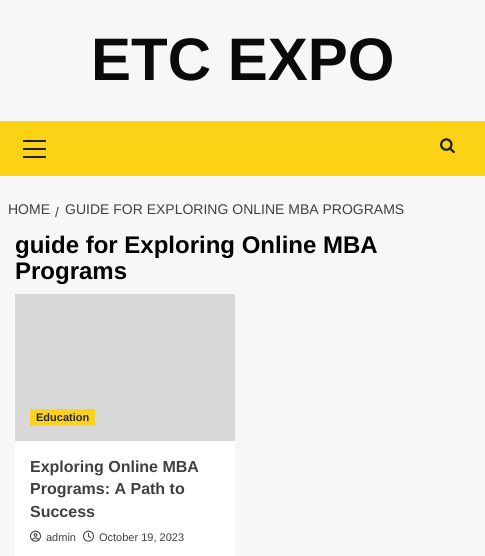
import math
import cairocffi as cairo

surface = cairo.ImageSurface(cairo.FORMAT_RGB24, 485, 556)
ctx = cairo.Context(surface)
options = cairo.FontOptions()
options.set_hint_metrics(cairo.HINT_METRICS_OFF)
options.set_hint_style(cairo.HINT_STYLE_NONE)
ctx.set_font_options(options)
ctx.set_miter_limit(4)


def rgb(r, g, b):
    ctx.set_source_rgb(r / 255, g / 255, b / 255)


def face(family, size, italic, bold):
    ctx.select_font_face(family, cairo.FONT_SLANT_ITALIC if italic else cairo.FONT_SLANT_NORMAL, cairo.FONT_WEIGHT_BOLD if bold else cairo.FONT_WEIGHT_NORMAL)
    ctx.set_font_size(size)


def label(x, y, s):
    ctx.move_to(x, y)
    ctx.show_text(s)


def rect(x, y, w, h):
    ctx.rectangle(x, y, w, h)
    ctx.fill()


def image(path, x, y, w, h):
    ctx.save()
    ctx.set_source_surface(cairo.ImageSurface.create_from_png(path), x, y)
    ctx.rectangle(x, y, w, h)
    ctx.fill()
    ctx.restore()


rgb(247, 247, 247)
ctx.paint()
face('Liberation Sans', 60, 0, 1)
rgb(10, 10, 10)
label(91, 80, 'ETC EXPO')
rgb(252, 210, 21)
rect(0, 121, 485, 55)
rgb(33, 33, 33)
rect(23, 148, 23, 2)
rect(23, 140, 23, 2)
rect(23, 156, 23, 2)
image('image0.png', 440, 138, 15, 16)
face('Liberation Sans', 14, 0, 0)
rgb(64, 64, 64)
label(8, 214, 'HOME')
label(55, 217, '/')
label(65, 214, 'GUIDE FOR EXPLORING ONLINE MBA PROGRAMS')
face('Liberation Sans', 24, 0, 1)
rgb(0, 0, 0)
label(15, 253, 'guide for Exploring Online MBA')
label(15, 279, 'Programs')
rgb(255, 255, 255)
rect(15, 441, 220, 115)
rgb(216, 216, 216)
rect(15, 294, 220, 147)
rgb(251, 210, 29)
rect(30, 409, 65, 17)
face('Liberation Sans', 11, 0, 1)
rgb(40, 40, 40)
label(36, 421, 'Education')
face('Liberation Sans', 16, 0, 1)
rgb(64, 64, 64)
label(30, 472, 'Exploring Online MBA')
label(30, 494, 'Programs: A Path to')
label(30, 517, 'Success')
image('image1.png', 30, 530, 11, 12)
face('Liberation Sans', 11, 0, 0)
label(46, 541, 'admin')
image('image2.png', 83, 530, 11, 12)
label(99, 541, 'October 19, 2023')
surface.write_to_png('render.png')
